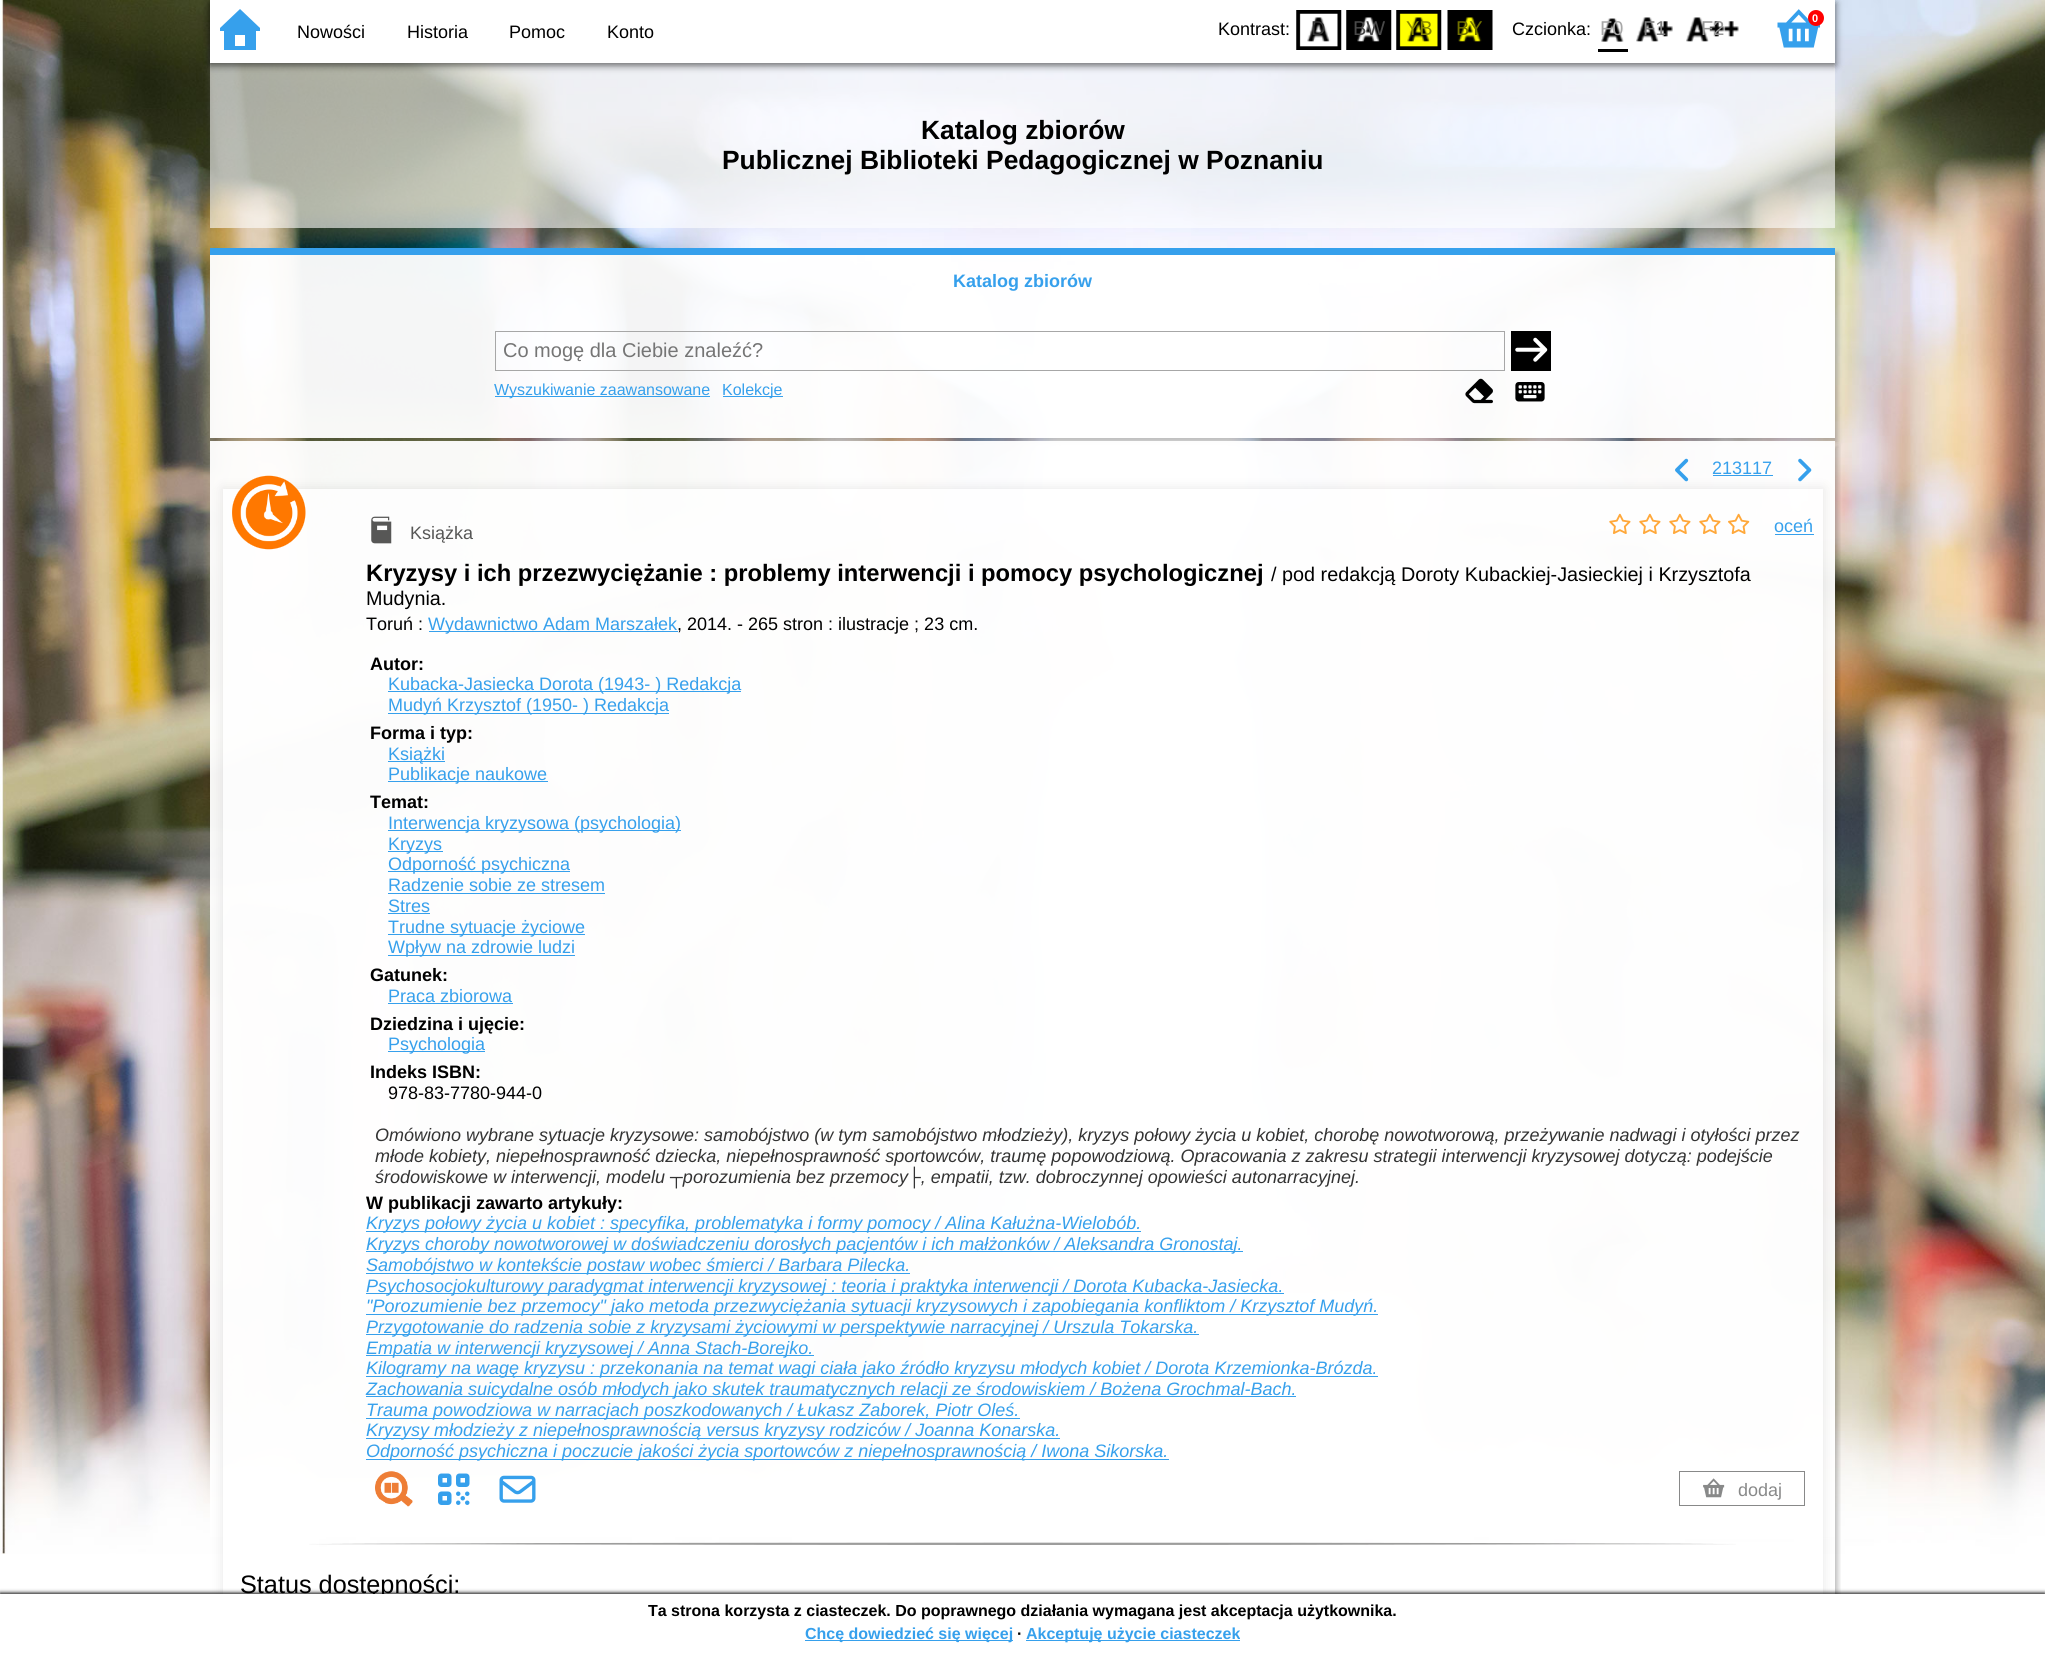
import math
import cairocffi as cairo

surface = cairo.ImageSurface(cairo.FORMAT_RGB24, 2045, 1654)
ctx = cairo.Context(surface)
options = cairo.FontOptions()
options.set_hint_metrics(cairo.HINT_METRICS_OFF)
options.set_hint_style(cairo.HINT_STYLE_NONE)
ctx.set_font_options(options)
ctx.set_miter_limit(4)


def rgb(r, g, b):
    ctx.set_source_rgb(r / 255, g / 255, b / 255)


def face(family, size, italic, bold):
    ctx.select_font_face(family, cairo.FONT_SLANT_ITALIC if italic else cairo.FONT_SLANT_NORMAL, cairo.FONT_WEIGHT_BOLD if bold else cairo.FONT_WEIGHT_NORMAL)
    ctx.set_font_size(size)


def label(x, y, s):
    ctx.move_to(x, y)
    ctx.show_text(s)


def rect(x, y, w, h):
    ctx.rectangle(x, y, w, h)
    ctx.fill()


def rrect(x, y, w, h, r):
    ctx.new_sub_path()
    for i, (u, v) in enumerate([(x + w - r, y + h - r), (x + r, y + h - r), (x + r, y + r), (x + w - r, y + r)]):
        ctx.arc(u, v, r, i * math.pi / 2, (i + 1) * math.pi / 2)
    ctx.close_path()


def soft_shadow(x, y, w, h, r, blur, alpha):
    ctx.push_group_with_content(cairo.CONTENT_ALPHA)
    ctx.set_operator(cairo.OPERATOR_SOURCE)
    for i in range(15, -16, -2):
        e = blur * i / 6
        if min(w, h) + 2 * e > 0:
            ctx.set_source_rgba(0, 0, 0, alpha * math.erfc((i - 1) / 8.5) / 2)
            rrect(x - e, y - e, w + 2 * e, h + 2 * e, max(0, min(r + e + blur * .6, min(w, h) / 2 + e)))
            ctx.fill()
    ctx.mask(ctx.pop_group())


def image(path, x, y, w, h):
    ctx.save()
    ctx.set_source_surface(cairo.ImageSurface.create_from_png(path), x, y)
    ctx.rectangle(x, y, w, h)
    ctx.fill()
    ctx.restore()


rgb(255, 255, 255)
ctx.paint()
image('image0.png', 0, 0, 2045, 1554)
ctx.set_source_rgba(1, 1, 1, 0.6)
rect(210, 63, 1625, 165)
rgb(0, 0, 0)
soft_shadow(210, 3, 1625, 62, 0, 4, 0.65)
rgb(255, 255, 255)
rect(210, 0, 1625, 63)
rgb(54, 160, 236)
ctx.new_path()
ctx.move_to(260, 31)
ctx.line_to(256, 31)
ctx.line_to(256, 50)
ctx.line_to(224, 50)
ctx.line_to(224, 31)
ctx.line_to(220, 31)
ctx.line_to(220, 28)
ctx.line_to(240, 9)
ctx.line_to(260, 28)
ctx.close_path()
ctx.move_to(245, 46)
ctx.line_to(245, 35)
ctx.line_to(235, 35)
ctx.line_to(235, 46)
ctx.close_path()
ctx.fill()
face('Liberation Sans', 18, 0, 0)
rgb(0, 0, 0)
label(297, 38, 'Nowości')
label(407, 38, 'Historia')
label(509, 38, 'Pomoc')
label(607, 38, 'Konto')
image('image1.png', 1777, 9, 43, 39)
rgb(255, 0, 0)
ctx.arc(1816, 18, 8, 0, 2 * math.pi)
ctx.fill()
face('Liberation Sans', 11, 0, 1)
rgb(255, 255, 255)
label(1812, 22, '0')
face('Liberation Sans', 18, 0, 0)
rgb(0, 0, 0)
label(1218, 35, 'Kontrast:')
image('image2.png', 1296, 10, 46, 40)
face('Liberation Sans', 20, 0, 0)
rgb(51, 51, 51)
label(1311, 35, 'D')
image('image3.png', 1346, 10, 46, 40)
rgb(73, 73, 73)
label(1353, 35, 'BW')
image('image4.png', 1396, 10, 46, 40)
rgb(137, 137, 0)
label(1406, 35, 'YB')
image('image5.png', 1447, 10, 46, 40)
rgb(112, 112, 0)
label(1456, 35, 'BY')
face('Liberation Sans', 18, 0, 0)
rgb(0, 0, 0)
label(1512, 35, 'Czcionka:')
image('image6.png', 1601, 18, 23, 24)
rect(1598, 49, 30, 3)
face('Liberation Sans', 20, 0, 0)
rgb(168, 168, 168)
label(1600, 35, 'F0')
image('image7.png', 1636, 17, 37, 25)
rgb(126, 126, 126)
label(1643, 35, 'F1')
image('image8.png', 1686, 17, 53, 25)
rgb(151, 151, 151)
label(1701, 35, 'F2')
face('Liberation Sans', 26.4, 0, 1)
rgb(0, 0, 0)
label(921, 139, 'Katalog zbiorów')
label(722, 169, 'Publicznej Biblioteki Pedagogicznej w Poznaniu')
ctx.save()
ctx.set_fill_rule(cairo.FILL_RULE_EVEN_ODD)
ctx.new_path()
ctx.move_to(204, 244)
ctx.line_to(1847, 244)
ctx.line_to(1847, 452)
ctx.line_to(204, 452)
ctx.close_path()
ctx.move_to(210, 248)
ctx.line_to(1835, 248)
ctx.line_to(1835, 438)
ctx.line_to(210, 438)
ctx.close_path()
ctx.clip()
rgb(0, 0, 0)
soft_shadow(213, 253, 1625, 190, 0, 2.5, 0.25)
ctx.restore()
ctx.set_source_rgba(1, 1, 1, 0.95)
rect(210, 255, 1625, 183)
rgb(54, 160, 236)
rect(210, 248, 1625, 7)
face('Liberation Sans', 18, 0, 1)
label(953, 287, 'Katalog zbiorów')
ctx.rectangle(495.5, 331.5, 1009, 39)
rgb(167, 167, 167)
ctx.set_line_width(1)
ctx.stroke()
face('Liberation Sans', 20, 0, 0)
rgb(117, 117, 117)
label(503, 357, 'Co mogę dla Ciebie znaleźć?')
rgb(0, 0, 0)
rect(1511, 331, 40, 40)
image('image9.png', 1515, 337, 33, 25)
rgb(54, 160, 236)
rect(495, 396, 215, 1)
face('Liberation Sans', 16, 0, 0)
label(494, 395, 'Wyszukiwanie zaawansowane')
rect(723, 396, 60, 1)
label(722, 395, 'Kolekcje')
image('image10.png', 1465, 378, 28, 26)
image('image11.png', 1515, 382, 30, 20)
ctx.save()
ctx.rectangle(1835, 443, 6, 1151)
ctx.clip()
rgb(0, 0, 0)
soft_shadow(213, 446, 1625, 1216, 0, 2.5, 0.25)
ctx.restore()
ctx.set_source_rgba(1, 1, 1, 0.95)
rect(210, 441, 1625, 1096)
ctx.save()
ctx.set_fill_rule(cairo.FILL_RULE_EVEN_ODD)
ctx.new_path()
ctx.move_to(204, 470)
ctx.line_to(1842, 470)
ctx.line_to(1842, 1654)
ctx.line_to(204, 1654)
ctx.close_path()
ctx.move_to(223, 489)
ctx.line_to(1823, 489)
ctx.line_to(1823, 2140)
ctx.line_to(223, 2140)
ctx.close_path()
ctx.clip()
rgb(0, 0, 0)
soft_shadow(223, 489, 1600, 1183, 0, 6, 0.1)
ctx.restore()
image('image12.png', 1675, 458, 14, 24)
face('Liberation Sans', 18, 0, 0)
rgb(54, 160, 236)
label(1712, 474, '213117')
rect(1713, 475, 60, 1)
image('image13.png', 1798, 458, 14, 24)
ctx.set_source_rgba(1, 1, 1, 0.7)
rect(223, 489, 1600, 1105)
image('image14.png', 232, 475, 74, 75)
image('image15.png', 371, 516, 21, 28)
rgb(87, 87, 86)
label(410, 539, 'Książka')
image('image16.png', 1609, 513, 22, 21)
image('image17.png', 1639, 513, 22, 21)
image('image18.png', 1669, 513, 22, 21)
image('image19.png', 1699, 513, 22, 21)
image('image20.png', 1728, 513, 22, 21)
rgb(54, 160, 236)
label(1774, 532, 'oceń')
rect(1775, 534, 39, 1)
face('Liberation Sans', 23.75, 0, 1)
rgb(0, 0, 0)
label(366, 581, 'Kryzysy i ich przezwyciężanie : problemy interwencji i pomocy psychologicznej')
face('Liberation Sans', 19.8, 0, 0)
label(1271, 581, '/ pod redakcją Doroty Kubackiej-Jasieckiej i Krzysztofa')
label(366, 605, 'Mudynia.')
face('Liberation Sans', 18, 0, 0)
label(366, 630, 'Toruń :')
rgb(54, 160, 236)
rect(429, 631, 249, 1)
label(428, 630, 'Wydawnictwo Adam Marszałek')
rgb(0, 0, 0)
label(677, 630, ', 2014. - 265 stron : ilustracje ; 23 cm.')
face('Liberation Sans', 18, 0, 1)
label(370, 670, 'Autor:')
rgb(54, 160, 236)
rect(388, 691, 353, 1)
face('Liberation Sans', 18, 0, 0)
label(388, 690, 'Kubacka-Jasiecka Dorota (1943- ) Redakcja')
rect(388, 713, 281, 1)
label(388, 711, 'Mudyń Krzysztof (1950- ) Redakcja')
face('Liberation Sans', 18, 0, 1)
rgb(0, 0, 0)
label(370, 739, 'Forma i typ:')
rgb(54, 160, 236)
rect(388, 761, 57, 1)
face('Liberation Sans', 18, 0, 0)
label(388, 760, 'Książki')
rect(388, 781, 160, 1)
label(388, 780, 'Publikacje naukowe')
face('Liberation Sans', 18, 0, 1)
rgb(0, 0, 0)
label(370, 808, 'Temat:')
rgb(54, 160, 236)
rect(388, 830, 293, 1)
face('Liberation Sans', 18, 0, 0)
label(388, 829, 'Interwencja kryzysowa (psychologia)')
rect(388, 851, 55, 1)
label(388, 850, 'Kryzys')
rect(388, 871, 182, 1)
label(388, 870, 'Odporność psychiczna')
label(388, 891, 'Radzenie sobie ze stresem')
rect(388, 893, 217, 1)
label(388, 912, 'Stres')
rect(388, 913, 42, 1)
rect(388, 934, 197, 1)
label(388, 933, 'Trudne sytuacje życiowe')
rect(388, 955, 187, 1)
label(388, 953, 'Wpływ na zdrowie ludzi')
face('Liberation Sans', 18, 0, 1)
rgb(0, 0, 0)
label(370, 981, 'Gatunek:')
face('Liberation Sans', 18, 0, 0)
rgb(54, 160, 236)
label(388, 1002, 'Praca zbiorowa')
rect(388, 1003, 125, 1)
face('Liberation Sans', 18, 0, 1)
rgb(0, 0, 0)
label(370, 1030, 'Dziedzina i ujęcie:')
rgb(54, 160, 236)
rect(388, 1051, 97, 1)
face('Liberation Sans', 18, 0, 0)
label(388, 1050, 'Psychologia')
face('Liberation Sans', 18, 0, 1)
rgb(0, 0, 0)
label(370, 1078, 'Indeks ISBN:')
face('Liberation Sans', 18, 0, 0)
label(388, 1099, '978-83-7780-944-0')
face('Liberation Sans', 18, 1, 0)
rgb(51, 51, 51)
label(375, 1141, 'Omówiono wybrane sytuacje kryzysowe: samobójstwo (w tym samobójstwo młodzieży), kryzys połowy życia u kobiet, chorobę nowotworową, przeżywanie nadwagi i otyłości przez')
label(375, 1162, 'młode kobiety, niepełnosprawność dziecka, niepełnosprawność sportowców, traumę popowodziową. Opracowania z zakresu strategii interwencji kryzysowej dotyczą: podejście')
label(375, 1183, 'środowiskowe w interwencji, modelu ┬porozumienia bez przemocy├, empatii, tzw. dobroczynnej opowieści autonarracyjnej.')
face('Liberation Sans', 18, 0, 1)
rgb(0, 0, 0)
label(366, 1209, 'W publikacji zawarto artykuły:')
rgb(54, 160, 236)
rect(366, 1231, 775, 1)
face('Liberation Sans', 18, 1, 0)
label(366, 1229, 'Kryzys połowy życia u kobiet : specyfika, problematyka i formy pomocy / Alina Kałużna-Wielobób.')
rect(366, 1251, 877, 1)
label(366, 1250, 'Kryzys choroby nowotworowej w doświadczeniu dorosłych pacjentów i ich małżonków / Aleksandra Gronostaj.')
rect(366, 1273, 544, 1)
label(366, 1271, 'Samobójstwo w kontekście postaw wobec śmierci / Barbara Pilecka.')
rect(366, 1293, 918, 1)
label(366, 1292, 'Psychosocjokulturowy paradygmat interwencji kryzysowej : teoria i praktyka interwencji / Dorota Kubacka-Jasiecka.')
rect(366, 1314, 1012, 1)
label(366, 1312, '"Porozumienie bez przemocy" jako metoda przezwyciężania sytuacji kryzysowych i zapobiegania konfliktom / Krzysztof Mudyń.')
rect(366, 1334, 833, 1)
label(366, 1333, 'Przygotowanie do radzenia sobie z kryzysami życiowymi w perspektywie narracyjnej / Urszula Tokarska.')
rect(366, 1355, 448, 1)
label(366, 1354, 'Empatia w interwencji kryzysowej / Anna Stach-Borejko.')
rect(366, 1376, 1012, 1)
label(366, 1374, 'Kilogramy na wagę kryzysu : przekonania na temat wagi ciała jako źródło kryzysu młodych kobiet / Dorota Krzemionka-Brózda.')
rect(366, 1396, 930, 1)
label(366, 1395, 'Zachowania suicydalne osób młodych jako skutek traumatycznych relacji ze środowiskiem / Bożena Grochmal-Bach.')
rect(366, 1418, 654, 1)
label(366, 1416, 'Trauma powodziowa w narracjach poszkodowanych / Łukasz Zaborek, Piotr Oleś.')
rect(366, 1438, 694, 1)
label(366, 1436, 'Kryzysy młodzieży z niepełnosprawnością versus kryzysy rodziców / Joanna Konarska.')
rect(366, 1459, 803, 1)
label(366, 1457, 'Odporność psychiczna i poczucie jakości życia sportowców z niepełnosprawnością / Iwona Sikorska.')
image('image21.png', 375, 1471, 38, 36)
image('image22.png', 438, 1473, 32, 32)
image('image23.png', 499, 1475, 37, 28)
ctx.rectangle(1679.5, 1471.5, 125, 34)
rgb(136, 137, 137)
ctx.stroke()
image('image24.png', 1703, 1478, 22, 20)
face('Liberation Sans', 18, 0, 0)
label(1738, 1496, 'dodaj')
image('image25.png', 309, 1542, 1427, 3)
face('Liberation Sans', 25.25, 0, 0)
rgb(0, 0, 0)
label(240, 1593, 'Status dostępności:')
rgb(0, 0, 0)
soft_shadow(0, 1593, 2045, 61, 0, 2, 1)
rgb(255, 255, 255)
rect(0, 1594, 2045, 60)
face('Liberation Sans', 16, 0, 1)
rgb(0, 0, 0)
label(648, 1616, 'Ta strona korzysta z ciasteczek. Do poprawnego działania wymagana jest akceptacja użytkownika.')
rgb(54, 160, 236)
rect(805, 1640, 208, 1)
label(805, 1639, 'Chcę dowiedzieć się więcej')
rgb(0, 0, 0)
label(1017, 1639, '∙')
rgb(54, 160, 236)
rect(1026, 1640, 214, 1)
label(1026, 1639, 'Akceptuję użycie ciasteczek')
surface.write_to_png('render.png')
